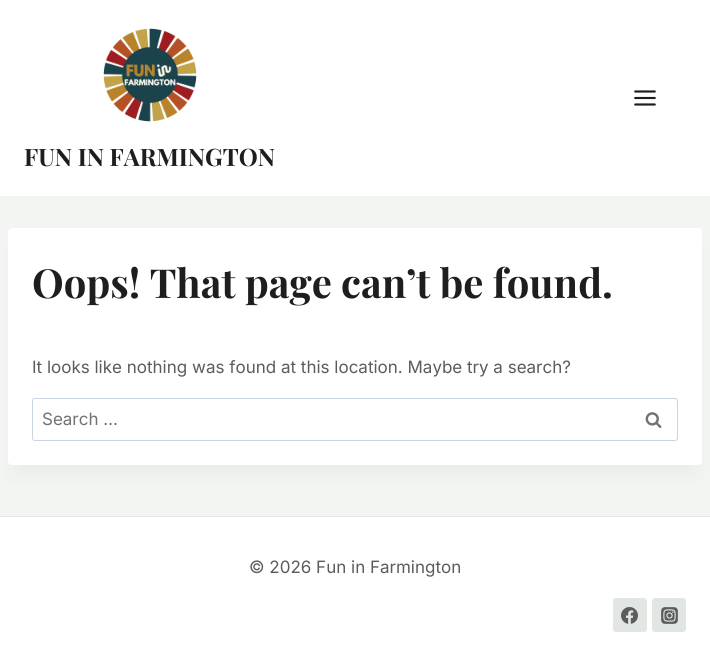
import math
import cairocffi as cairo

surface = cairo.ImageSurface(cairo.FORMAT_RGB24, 710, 657)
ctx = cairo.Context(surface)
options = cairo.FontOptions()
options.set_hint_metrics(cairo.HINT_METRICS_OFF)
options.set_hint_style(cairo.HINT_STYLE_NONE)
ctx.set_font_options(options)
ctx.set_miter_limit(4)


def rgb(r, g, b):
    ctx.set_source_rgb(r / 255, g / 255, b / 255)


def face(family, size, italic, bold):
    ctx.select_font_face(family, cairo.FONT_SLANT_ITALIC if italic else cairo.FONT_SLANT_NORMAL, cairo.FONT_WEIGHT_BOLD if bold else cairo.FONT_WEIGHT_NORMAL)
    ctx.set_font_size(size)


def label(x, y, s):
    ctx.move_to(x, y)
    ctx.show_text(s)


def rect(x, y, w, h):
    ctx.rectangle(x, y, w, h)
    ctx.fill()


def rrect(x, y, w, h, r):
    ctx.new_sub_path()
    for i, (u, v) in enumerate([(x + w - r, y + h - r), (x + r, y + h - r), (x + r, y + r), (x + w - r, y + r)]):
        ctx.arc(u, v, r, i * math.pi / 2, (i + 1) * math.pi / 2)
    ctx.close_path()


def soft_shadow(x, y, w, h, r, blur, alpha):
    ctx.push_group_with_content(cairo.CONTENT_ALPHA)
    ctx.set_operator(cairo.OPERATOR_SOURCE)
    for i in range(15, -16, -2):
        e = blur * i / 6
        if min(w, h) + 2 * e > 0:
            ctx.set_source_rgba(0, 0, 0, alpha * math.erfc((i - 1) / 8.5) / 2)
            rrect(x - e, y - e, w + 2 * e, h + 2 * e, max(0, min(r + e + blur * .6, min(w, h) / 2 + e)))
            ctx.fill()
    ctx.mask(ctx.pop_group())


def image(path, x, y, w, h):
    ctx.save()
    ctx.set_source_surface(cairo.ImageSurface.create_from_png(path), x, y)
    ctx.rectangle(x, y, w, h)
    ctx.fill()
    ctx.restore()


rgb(242, 245, 241)
ctx.paint()
rgb(255, 255, 255)
rect(0, 0, 710, 196)
image('image0.png', 634, 90, 22, 16)
image('image1.png', 103, 28, 94, 94)
face('Playfair Display', 24, 0, 1)
rgb(30, 30, 30)
label(24, 166, 'FUN IN FARMINGTON')
rgb(0, 0, 0)
soft_shadow(18, 253, 674, 217, 0, 12.5, 0.05)
rgb(255, 255, 255)
rrect(8, 228, 694, 237, 4)
ctx.fill()
face('Playfair Display', 40, 0, 1)
rgb(30, 30, 30)
label(32, 298, 'Oops! That page can’t be found.')
face('Inter', 17, 0, 0)
rgb(92, 92, 92)
label(32, 373, 'It looks like nothing was found at this location. Maybe try a search?')
rrect(32.5, 398.5, 645, 42, 2.5)
rgb(203, 213, 224)
ctx.set_line_width(1)
ctx.stroke()
rgb(114, 114, 114)
label(42, 425, 'Search …')
image('image2.png', 645, 412, 17, 16)
rgb(255, 255, 255)
rect(0, 517, 710, 140)
rgb(226, 230, 226)
rect(0, 516, 710, 1)
rgb(92, 92, 92)
label(249, 573, '© 2026 Fun in Farmington')
rgb(226, 230, 226)
rrect(613, 598, 34, 34, 3)
ctx.fill()
image('image3.png', 621, 607, 17, 17)
rrect(652, 598, 34, 34, 3)
ctx.fill()
image('image4.png', 661, 607, 17, 17)
surface.write_to_png('render.png')
